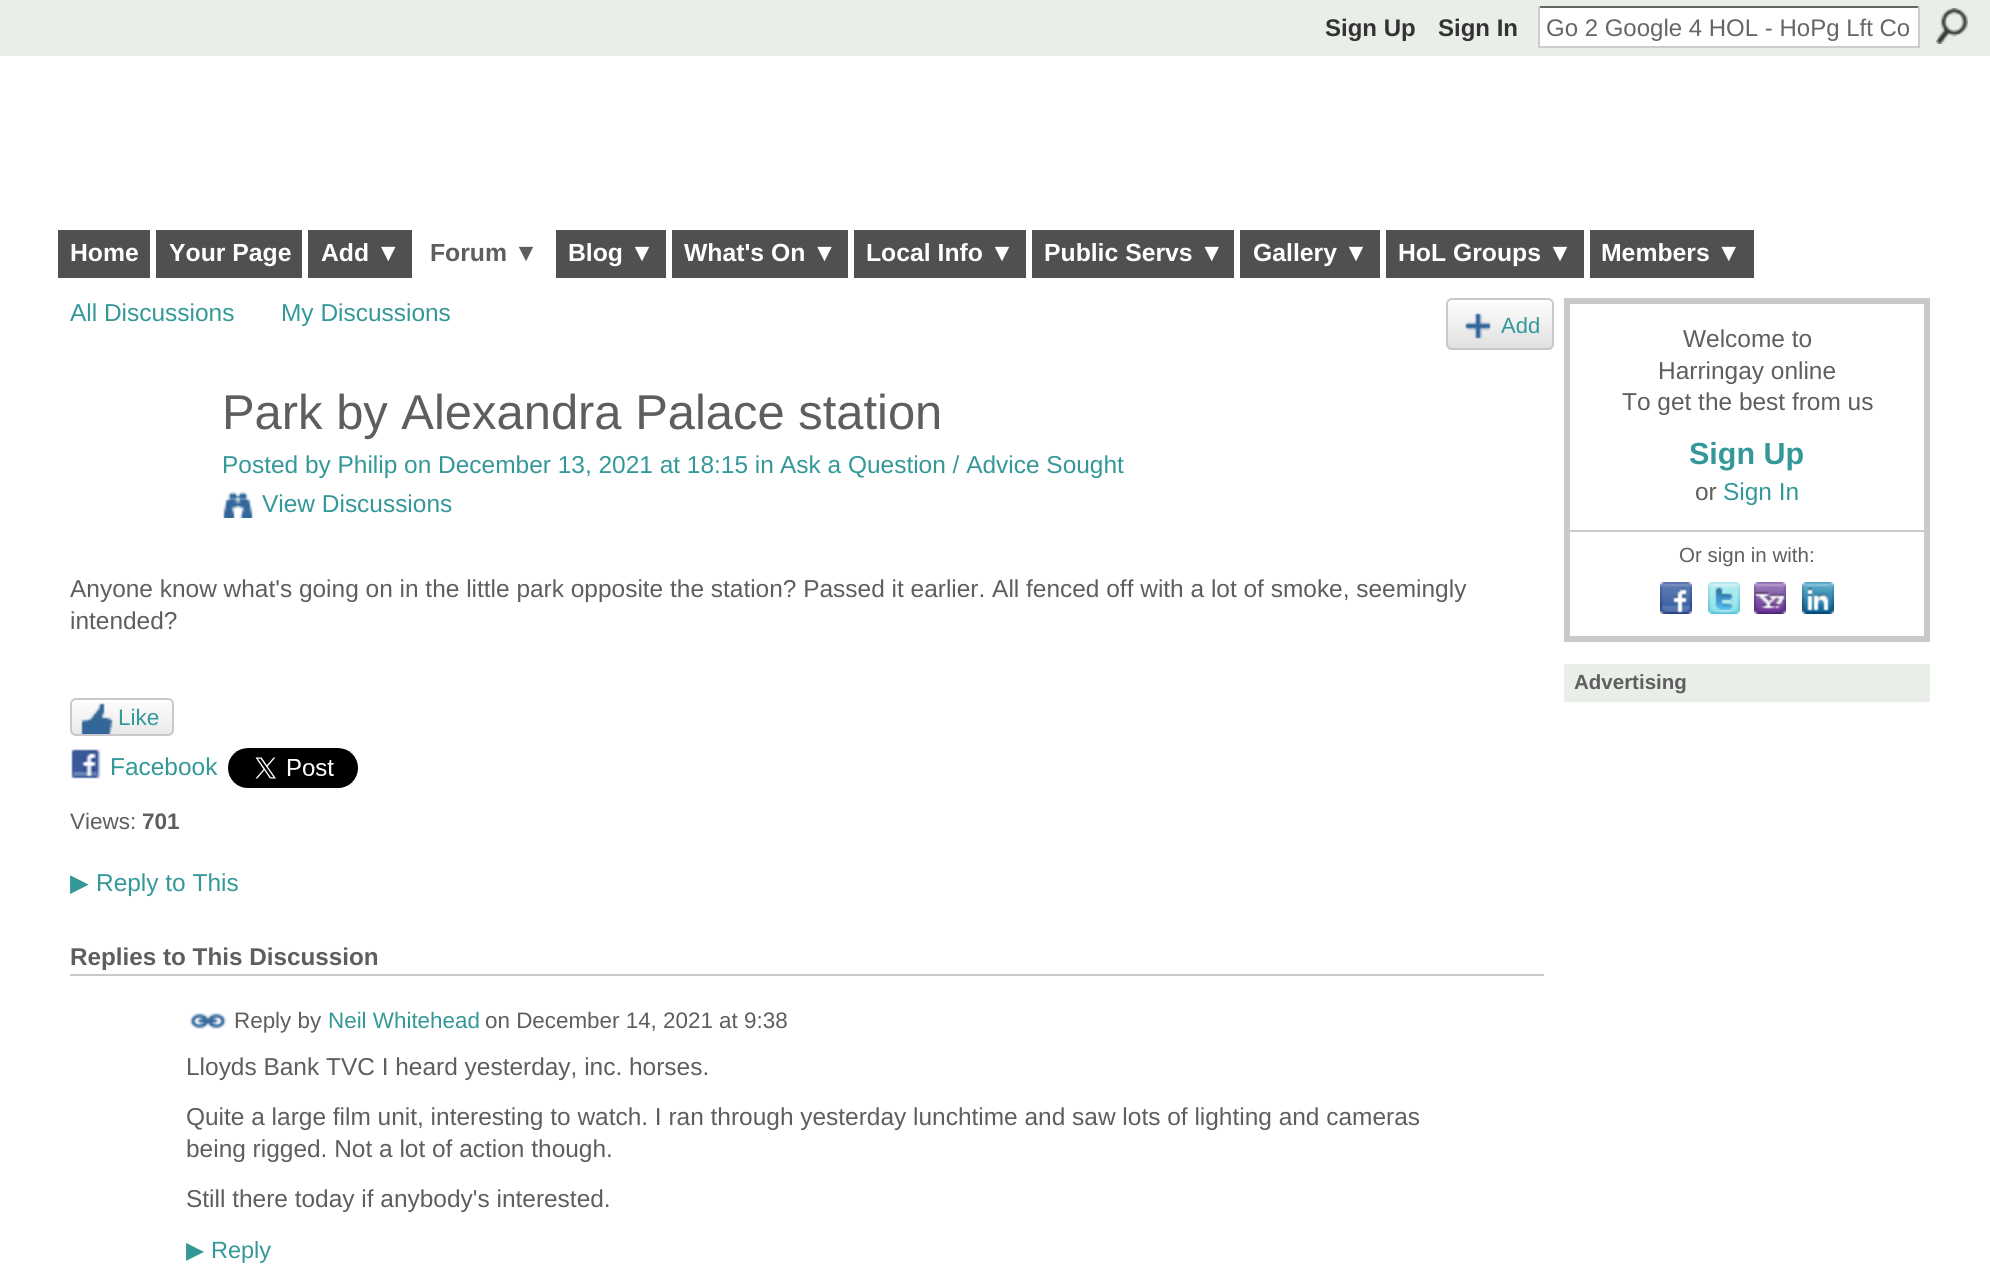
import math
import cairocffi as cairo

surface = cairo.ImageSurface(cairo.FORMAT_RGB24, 1990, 1265)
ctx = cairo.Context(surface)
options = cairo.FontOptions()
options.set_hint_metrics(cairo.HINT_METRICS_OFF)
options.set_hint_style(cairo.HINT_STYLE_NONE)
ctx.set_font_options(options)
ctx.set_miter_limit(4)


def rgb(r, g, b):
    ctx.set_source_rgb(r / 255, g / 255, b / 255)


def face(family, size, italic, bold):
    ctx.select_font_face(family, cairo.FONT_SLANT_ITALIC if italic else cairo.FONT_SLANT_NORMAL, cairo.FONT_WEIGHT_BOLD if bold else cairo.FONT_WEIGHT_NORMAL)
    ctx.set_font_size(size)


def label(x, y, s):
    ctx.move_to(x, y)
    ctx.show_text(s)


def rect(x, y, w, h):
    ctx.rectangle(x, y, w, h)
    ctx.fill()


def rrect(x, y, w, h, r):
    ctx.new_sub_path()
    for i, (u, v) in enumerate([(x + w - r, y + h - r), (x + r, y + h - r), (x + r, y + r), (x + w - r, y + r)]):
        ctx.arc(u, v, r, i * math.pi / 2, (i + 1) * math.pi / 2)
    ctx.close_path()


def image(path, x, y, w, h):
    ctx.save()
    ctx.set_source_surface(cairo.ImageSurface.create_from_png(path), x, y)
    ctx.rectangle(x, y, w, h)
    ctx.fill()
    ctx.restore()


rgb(255, 255, 255)
ctx.paint()
rgb(233, 238, 232)
rect(0, 0, 1990, 56)
face('Liberation Sans', 24, 0, 1)
rgb(51, 51, 51)
label(1325, 36, 'Sign Up')
label(1438, 36, 'Sign In')
rgb(255, 255, 255)
rect(1540, 8, 378, 38)
rgb(102, 102, 102)
rect(1538, 6, 382, 2)
rgb(204, 204, 204)
rect(1918, 6, 2, 42)
rect(1538, 46, 382, 2)
rect(1538, 6, 2, 42)
face('Liberation Sans', 24, 0, 0)
rgb(102, 102, 102)
label(1546, 36, 'Go 2 Google 4 HOL - HoPg Lft Co')
image('image0.png', 1936, 8, 32, 36)
rgb(80, 80, 80)
rect(58, 230, 92, 48)
face('Liberation Sans', 24.75, 0, 1)
rgb(255, 255, 255)
label(70, 261, 'Home')
rgb(80, 80, 80)
rect(156, 230, 146, 48)
rgb(255, 255, 255)
label(169, 261, 'Your Page')
rgb(80, 80, 80)
rect(308, 230, 104, 48)
rgb(255, 255, 255)
label(321, 261, 'Add ▼')
rgb(94, 94, 94)
label(430, 261, 'Forum ▼')
rgb(80, 80, 80)
rect(556, 230, 110, 48)
rgb(255, 255, 255)
label(568, 261, 'Blog ▼')
rgb(80, 80, 80)
rect(672, 230, 176, 48)
rgb(255, 255, 255)
label(684, 261, 'What\'s On ▼')
rgb(80, 80, 80)
rect(854, 230, 172, 48)
rgb(255, 255, 255)
label(866, 261, 'Local Info ▼')
rgb(80, 80, 80)
rect(1032, 230, 202, 48)
rgb(255, 255, 255)
label(1044, 261, 'Public Servs ▼')
rgb(80, 80, 80)
rect(1240, 230, 140, 48)
rgb(255, 255, 255)
label(1253, 261, 'Gallery ▼')
rgb(80, 80, 80)
rect(1386, 230, 198, 48)
rgb(255, 255, 255)
label(1398, 261, 'HoL Groups ▼')
rgb(80, 80, 80)
rect(1590, 230, 164, 48)
rgb(255, 255, 255)
label(1601, 261, 'Members ▼')
face('Liberation Sans', 24.45, 0, 0)
rgb(52, 152, 153)
label(70, 321, 'All Discussions')
label(281, 321, 'My Discussions')
image('image1.png', 1446, 302, 108, 48)
rrect(1447, 299, 106, 50, 5)
rgb(201, 201, 201)
ctx.stroke()
image('image2.png', 1465, 313, 26, 26)
face('Liberation Sans', 22, 0, 0)
rgb(52, 152, 153)
label(1501, 333, 'Add')
face('Liberation Sans', 48.9, 0, 0)
rgb(94, 94, 94)
label(222, 429, 'Park by Alexandra Palace station')
face('Liberation Sans', 24.45, 0, 0)
rgb(52, 152, 153)
label(222, 473, 'Posted by Philip on December 13, 2021 at 18:15 in')
label(780, 473, 'Ask a Question / Advice Sought')
image('image3.png', 223, 491, 30, 27)
label(262, 512, 'View Discussions')
rgb(94, 94, 94)
label(70, 597, 'Anyone know what\'s going on in the little park opposite the station? Passed it earlier. All fenced off with a lot of smoke, seemingly')
label(70, 629, 'intended?')
image('image4.png', 70, 702, 104, 34)
rrect(71, 699, 102, 36, 5)
rgb(201, 201, 201)
ctx.stroke()
image('image5.png', 81, 703, 32, 31)
face('Liberation Sans', 22.5, 0, 0)
rgb(52, 152, 153)
label(118, 725, 'Like')
image('image6.png', 71, 749, 30, 30)
face('Liberation Sans', 24.45, 0, 0)
label(110, 775, 'Facebook')
image('image7.png', 228, 748, 130, 40)
face('Liberation Sans', 22.5, 0, 0)
rgb(94, 94, 94)
label(70, 829, 'Views:')
face('Liberation Sans', 22.5, 0, 1)
label(142, 829, '701')
face('DejaVu Sans', 24.45, 0, 0)
rgb(52, 152, 153)
label(70, 891, '▶')
face('Liberation Sans', 24.45, 0, 0)
label(96, 891, 'Reply to This')
face('Liberation Sans', 24.25, 0, 1)
rgb(94, 94, 94)
label(70, 965, 'Replies to This Discussion')
rgb(201, 201, 201)
rect(70, 974, 1474, 2)
image('image8.png', 190, 1013, 37, 16)
face('Liberation Sans', 22.4, 0, 0)
rgb(94, 94, 94)
label(234, 1028, 'Reply by')
rgb(52, 152, 153)
label(328, 1028, 'Neil Whitehead')
rgb(94, 94, 94)
label(485, 1028, 'on December 14, 2021 at 9:38')
face('Liberation Sans', 24.45, 0, 0)
label(186, 1075, 'Lloyds Bank TVC I heard yesterday, inc. horses.')
label(186, 1125, 'Quite a large film unit, interesting to watch. I ran through yesterday lunchtime and saw lots of lighting and cameras')
label(186, 1157, 'being rigged. Not a lot of action though.')
label(186, 1207, 'Still there today if anybody\'s interested.')
face('DejaVu Sans', 23.5, 0, 0)
rgb(52, 152, 153)
label(186, 1258, '▶')
face('Liberation Sans', 23.5, 0, 0)
label(211, 1258, 'Reply')
ctx.rectangle(1567, 301, 360, 338)
rgb(201, 201, 201)
ctx.set_line_width(6)
ctx.stroke()
face('Liberation Sans', 24.45, 0, 0)
rgb(94, 94, 94)
label(1683, 347, 'Welcome to')
label(1658, 379, 'Harringay online')
label(1622, 410, 'To get the best from us')
face('Liberation Sans', 30.5, 0, 1)
rgb(52, 152, 153)
label(1689, 464, 'Sign Up')
face('Liberation Sans', 24.45, 0, 0)
rgb(94, 94, 94)
label(1695, 500, 'or')
rgb(52, 152, 153)
label(1723, 500, 'Sign In')
rgb(201, 201, 201)
rect(1570, 530, 354, 2)
face('Liberation Sans', 20.5, 0, 0)
rgb(94, 94, 94)
label(1679, 562, 'Or sign in with:')
image('image9.png', 1660, 582, 32, 32)
image('image10.png', 1708, 582, 32, 32)
image('image11.png', 1754, 582, 32, 32)
image('image12.png', 1802, 582, 32, 32)
rgb(233, 238, 232)
rect(1564, 664, 366, 38)
face('Liberation Sans', 20.5, 0, 1)
rgb(94, 94, 94)
label(1574, 689, 'Advertising')
surface.write_to_png('render.png')
